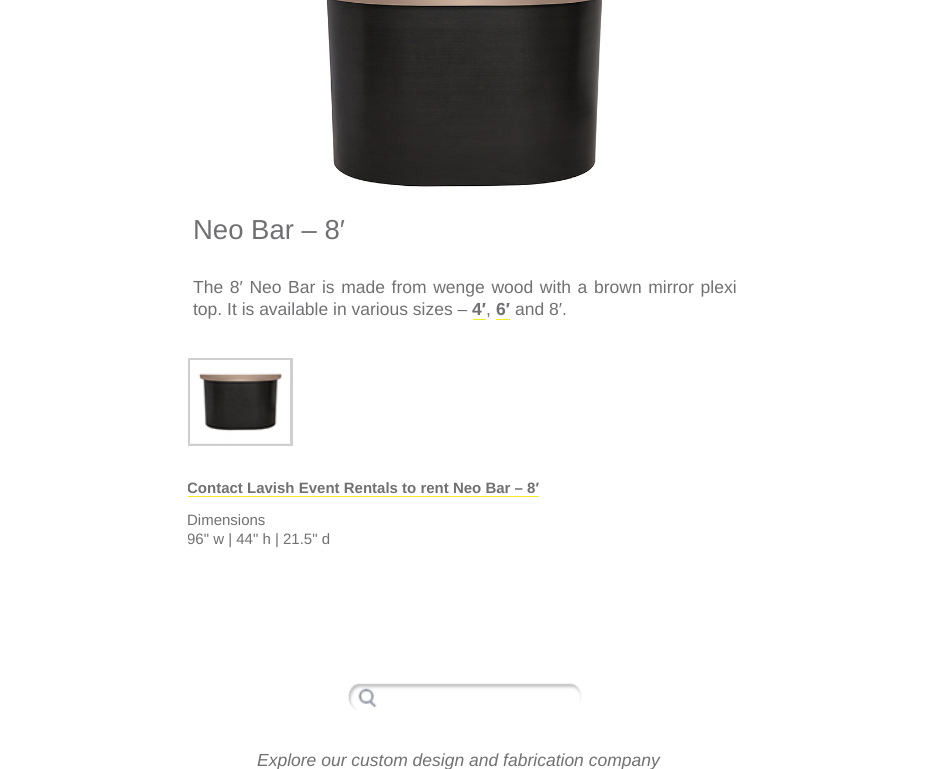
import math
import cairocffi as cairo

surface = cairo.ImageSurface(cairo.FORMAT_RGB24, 930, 769)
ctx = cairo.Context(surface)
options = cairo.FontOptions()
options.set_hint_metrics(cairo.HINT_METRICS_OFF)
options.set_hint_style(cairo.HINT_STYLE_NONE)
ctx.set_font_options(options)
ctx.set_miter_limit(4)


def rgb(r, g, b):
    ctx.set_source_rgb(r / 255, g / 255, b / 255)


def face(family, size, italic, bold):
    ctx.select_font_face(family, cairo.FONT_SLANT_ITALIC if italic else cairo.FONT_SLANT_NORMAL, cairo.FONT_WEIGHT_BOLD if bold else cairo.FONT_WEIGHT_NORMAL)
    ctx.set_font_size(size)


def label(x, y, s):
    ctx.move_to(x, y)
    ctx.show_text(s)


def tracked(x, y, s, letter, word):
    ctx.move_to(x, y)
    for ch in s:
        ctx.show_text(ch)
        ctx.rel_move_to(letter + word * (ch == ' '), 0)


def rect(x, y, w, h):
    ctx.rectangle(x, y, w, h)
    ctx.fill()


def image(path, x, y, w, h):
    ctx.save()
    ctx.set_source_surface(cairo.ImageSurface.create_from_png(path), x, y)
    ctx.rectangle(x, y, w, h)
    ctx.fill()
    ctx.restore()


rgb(255, 255, 255)
ctx.paint()
image('image0.png', 326, 0, 276, 187)
face('Liberation Sans', 27.5, 0, 0)
rgb(112, 112, 115)
label(193, 239, 'Neo Bar – 8′')
face('Liberation Sans', 17.5, 0, 0)
tracked(193, 293, 'The 8′ Neo Bar is made from wenge wood with a brown mirror plexi', 0, 1.75)
label(193, 315, 'top. It is available in various sizes –')
face('Liberation Sans', 17.5, 0, 1)
label(472, 315, '4′')
rgb(246, 235, 33)
rect(473, 319, 13, 1)
face('Liberation Sans', 17.5, 0, 0)
rgb(112, 112, 115)
label(486, 315, ',')
face('Liberation Sans', 17.5, 0, 1)
label(496, 315, '6′')
rgb(246, 235, 33)
rect(496, 319, 14, 1)
face('Liberation Sans', 17.5, 0, 0)
rgb(112, 112, 115)
label(515, 315, 'and 8′.')
ctx.rectangle(189.5, 359.5, 102, 85)
rgb(207, 207, 207)
ctx.set_line_width(3)
ctx.stroke()
image('image1.png', 190, 360, 100, 84)
ctx.save()
ctx.rectangle(188, 0, 556, 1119)
ctx.clip()
face('Liberation Sans', 15, 0, 1)
rgb(112, 112, 115)
label(187, 493, 'Contact Lavish Event Rentals to rent Neo Bar – 8′')
ctx.restore()
rgb(246, 235, 33)
rect(188, 496, 351, 1)
face('Liberation Sans', 15, 0, 0)
rgb(112, 112, 115)
label(187, 525, 'Dimensions')
ctx.save()
ctx.rectangle(188, 0, 556, 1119)
ctx.clip()
label(187, 544, '96" w | 44" h | 21.5" d')
ctx.restore()
image('image2.png', 348, 683, 234, 27)
face('Liberation Sans', 17.5, 1, 0)
label(257, 766, 'Explore our custom design and fabrication company')
surface.write_to_png('render.png')
